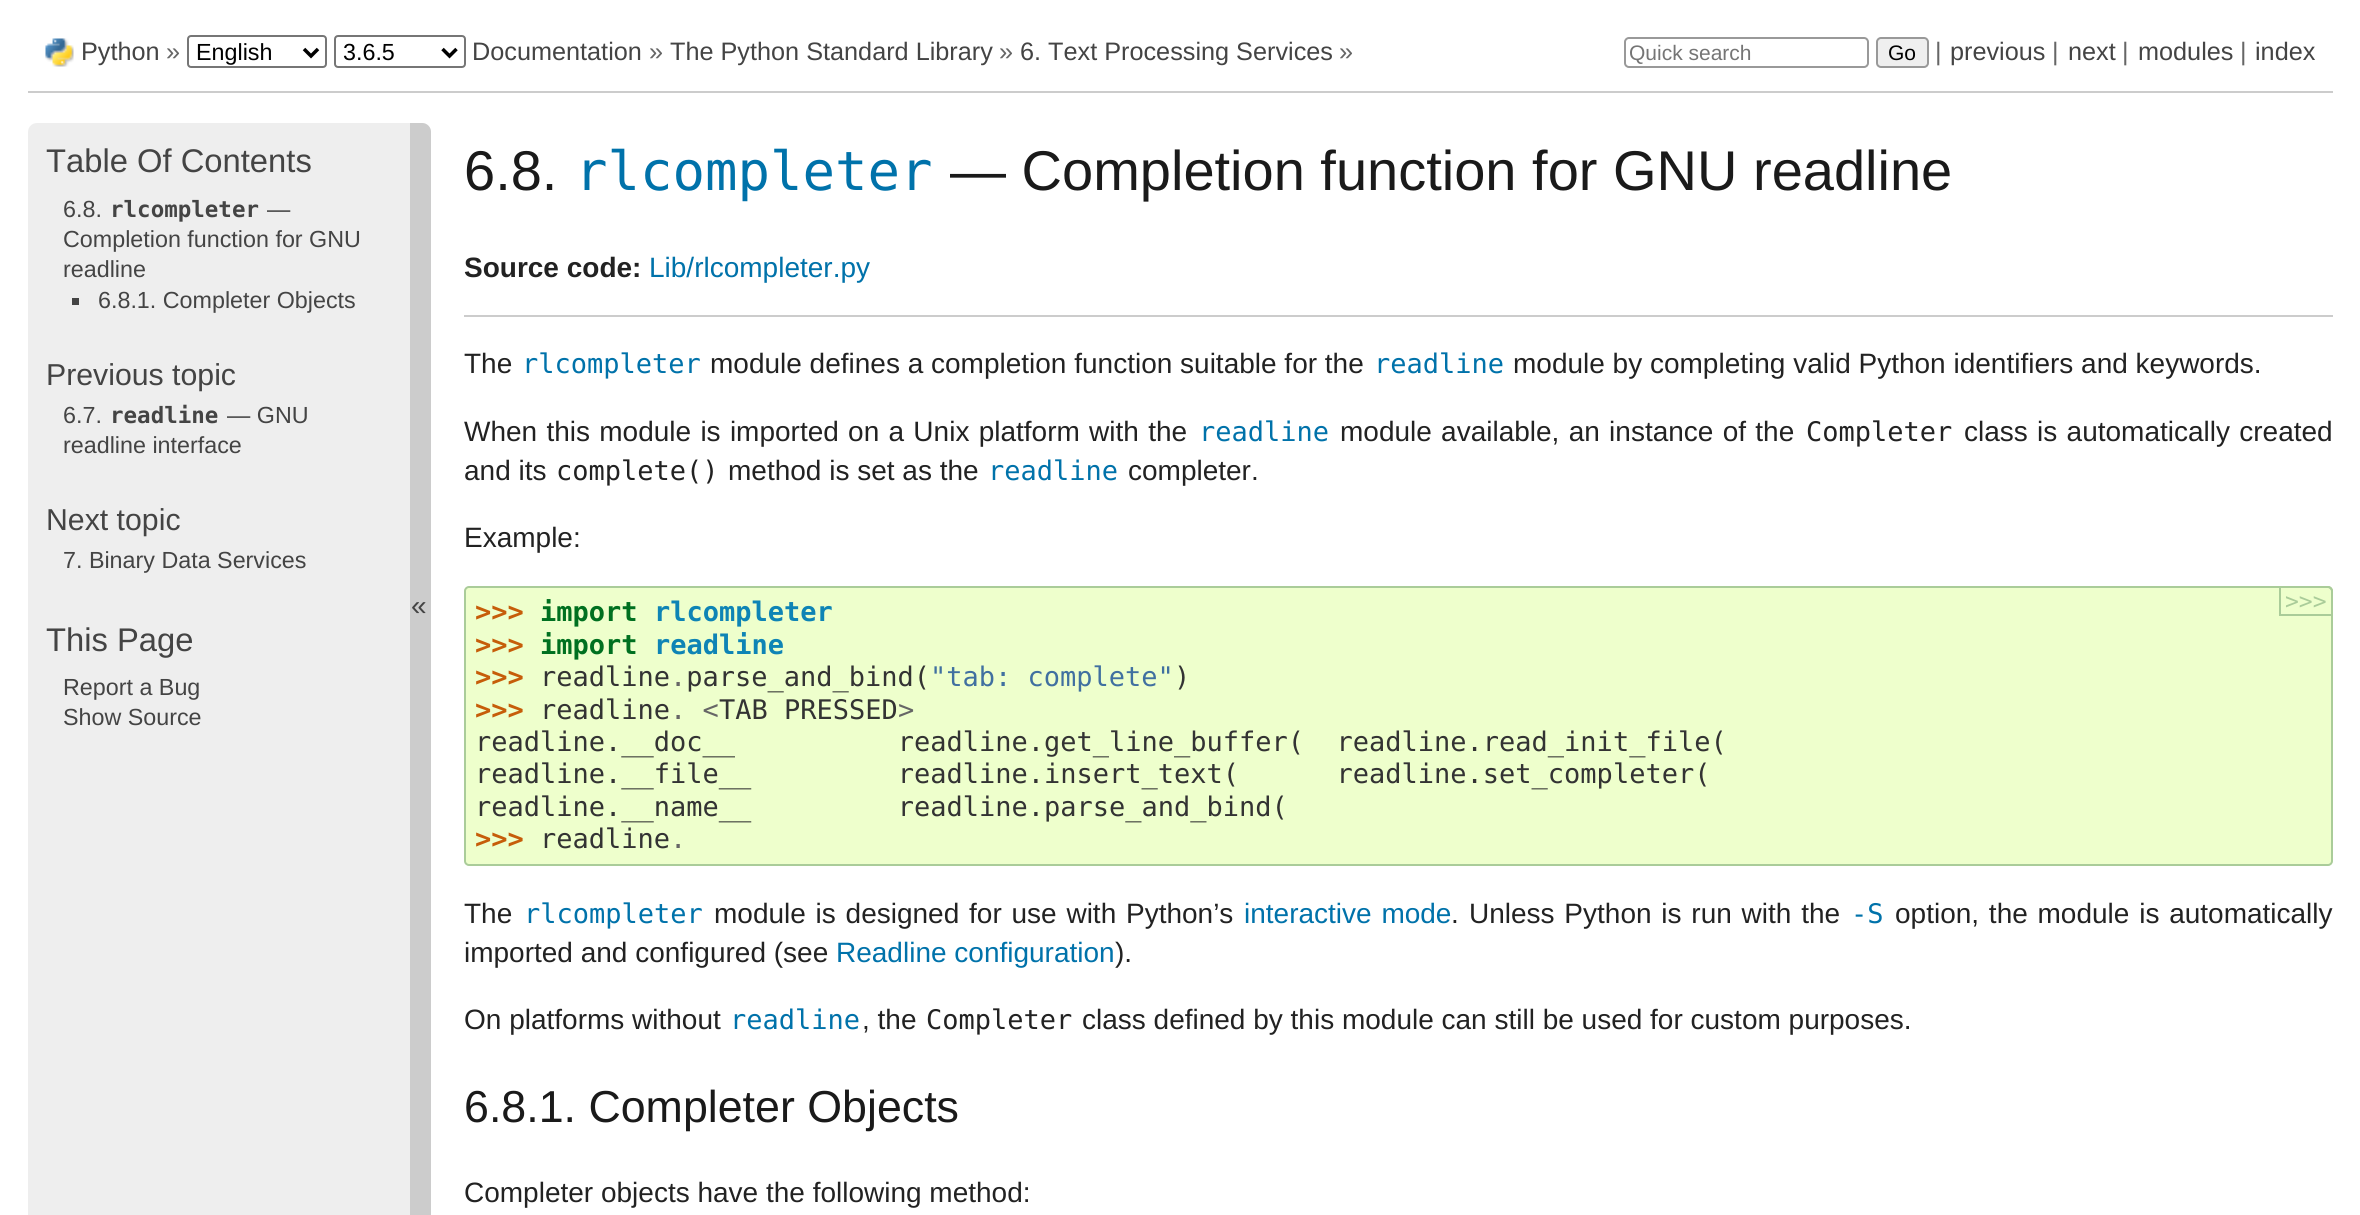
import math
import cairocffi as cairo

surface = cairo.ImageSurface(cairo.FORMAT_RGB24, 2360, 1215)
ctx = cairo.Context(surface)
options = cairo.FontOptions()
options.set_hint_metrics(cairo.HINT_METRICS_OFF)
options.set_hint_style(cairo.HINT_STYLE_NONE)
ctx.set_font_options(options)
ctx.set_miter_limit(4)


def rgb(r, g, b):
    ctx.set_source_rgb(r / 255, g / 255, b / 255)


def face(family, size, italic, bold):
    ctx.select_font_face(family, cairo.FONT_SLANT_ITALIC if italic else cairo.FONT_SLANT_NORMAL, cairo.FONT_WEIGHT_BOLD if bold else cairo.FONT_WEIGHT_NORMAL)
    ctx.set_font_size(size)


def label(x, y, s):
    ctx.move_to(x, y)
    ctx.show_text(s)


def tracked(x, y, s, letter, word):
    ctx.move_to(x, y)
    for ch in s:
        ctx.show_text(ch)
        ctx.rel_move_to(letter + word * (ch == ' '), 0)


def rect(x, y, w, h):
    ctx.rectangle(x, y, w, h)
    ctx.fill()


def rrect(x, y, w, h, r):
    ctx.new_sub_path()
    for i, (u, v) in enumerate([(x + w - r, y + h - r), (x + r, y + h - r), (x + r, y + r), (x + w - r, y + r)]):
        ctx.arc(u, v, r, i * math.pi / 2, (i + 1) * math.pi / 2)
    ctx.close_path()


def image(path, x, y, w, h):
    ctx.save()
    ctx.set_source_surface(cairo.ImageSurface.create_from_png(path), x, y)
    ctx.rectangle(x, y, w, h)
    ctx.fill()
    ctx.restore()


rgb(255, 255, 255)
ctx.paint()
rgb(204, 204, 204)
rect(28, 91, 2305, 2)
image('image0.png', 45, 38, 29, 29)
face('Liberation Sans', 25.25, 0, 0)
rgb(68, 68, 68)
label(81, 60, 'Python')
rgb(102, 102, 102)
label(166, 60, '»')
rrect(188, 36, 138, 31, 3)
rgb(118, 118, 118)
ctx.stroke()
ctx.new_path()
ctx.move_to(304, 49)
ctx.line_to(311, 56)
ctx.line_to(318, 49)
rgb(0, 0, 0)
ctx.set_line_width(3.5)
ctx.stroke()
face('Liberation Sans', 23.3, 0, 0)
label(196, 60, 'English')
rrect(335, 36, 130, 31, 3)
rgb(118, 118, 118)
ctx.set_line_width(2)
ctx.stroke()
ctx.new_path()
ctx.move_to(442.5, 49)
ctx.line_to(449.5, 56)
ctx.line_to(456.5, 49)
rgb(0, 0, 0)
ctx.set_line_width(3.5)
ctx.stroke()
label(343, 60, '3.6.5')
face('Liberation Sans', 25.25, 0, 0)
rgb(68, 68, 68)
label(472, 60, 'Documentation')
rgb(102, 102, 102)
label(649, 60, '»')
rgb(68, 68, 68)
label(670, 60, 'The Python Standard Library')
rgb(102, 102, 102)
label(999, 60, '»')
rgb(68, 68, 68)
label(1020, 60, '6. Text Processing Services')
rgb(102, 102, 102)
label(1339, 60, '»')
rrect(1625, 38, 243, 29, 4)
rgb(153, 153, 153)
ctx.set_line_width(2)
ctx.stroke()
face('Liberation Sans', 21, 0, 0)
rgb(117, 117, 117)
label(1629, 60, 'Quick search')
rgb(239, 239, 239)
rrect(1877, 38, 51, 29, 4)
ctx.fill_preserve()
rgb(153, 153, 153)
ctx.stroke()
rgb(0, 0, 0)
label(1888, 60, 'Go')
face('Liberation Sans', 25.25, 0, 0)
rgb(102, 102, 102)
label(1935, 60, '|')
rgb(68, 68, 68)
label(1950, 60, 'previous')
rgb(102, 102, 102)
label(2052, 60, '|')
rgb(68, 68, 68)
label(2068, 60, 'next')
rgb(102, 102, 102)
label(2122, 60, '|')
rgb(68, 68, 68)
label(2138, 60, 'modules')
rgb(102, 102, 102)
label(2240, 60, '|')
rgb(68, 68, 68)
label(2255, 60, 'index')
rgb(238, 238, 238)
rrect(28, 123, 403, 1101, 9)
ctx.fill()
face('Liberation Sans', 32.75, 0, 0)
rgb(68, 68, 68)
label(46, 172, 'Table Of Contents')
face('Liberation Sans', 23.3, 0, 0)
label(63, 217, '6.8.')
face('DejaVu Sans Mono', 22.5, 0, 1)
label(110, 217, 'rlcompleter')
face('Liberation Sans', 23.3, 0, 0)
label(267, 217, '—')
label(63, 247, 'Completion function for GNU')
label(63, 277, 'readline')
rect(72, 298, 7, 7)
label(98, 308, '6.8.1. Completer Objects')
face('Liberation Sans', 30.25, 0, 0)
label(46, 385, 'Previous topic')
face('Liberation Sans', 23.3, 0, 0)
label(63, 423, '6.7.')
face('DejaVu Sans Mono', 22.5, 0, 1)
label(110, 423, 'readline')
face('Liberation Sans', 23.3, 0, 0)
label(227, 423, '— GNU')
label(63, 453, 'readline interface')
face('Liberation Sans', 30.25, 0, 0)
label(46, 530, 'Next topic')
face('Liberation Sans', 23.3, 0, 0)
label(63, 568, '7. Binary Data Services')
face('Liberation Sans', 32.75, 0, 0)
label(46, 651, 'This Page')
face('Liberation Sans', 23.3, 0, 0)
label(63, 695, 'Report a Bug')
label(63, 725, 'Show Source')
rgb(204, 204, 204)
ctx.new_path()
ctx.move_to(410, 123)
ctx.line_to(422, 123)
ctx.curve_to(427, 123, 431, 127, 431, 132)
ctx.line_to(431, 1215)
ctx.curve_to(431, 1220, 427, 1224, 422, 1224)
ctx.line_to(410, 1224)
ctx.close_path()
ctx.fill()
face('Liberation Sans', 28, 0, 0)
rgb(68, 68, 68)
label(411, 615, '«')
face('Liberation Sans', 56, 0, 0)
rgb(26, 26, 26)
label(464, 190, '6.8.')
face('DejaVu Sans Mono', 54, 0, 0)
rgb(0, 114, 170)
label(575, 190, 'rlcompleter')
face('Liberation Sans', 56, 0, 0)
rgb(26, 26, 26)
label(950, 190, '— Completion function for GNU readline')
face('Liberation Sans', 28, 0, 1)
rgb(34, 34, 34)
label(464, 277, 'Source code:')
face('Liberation Sans', 28, 0, 0)
rgb(0, 114, 170)
label(649, 277, 'Lib/rlcompleter.py')
rgb(204, 204, 204)
rect(464, 315, 1869, 2)
rgb(34, 34, 34)
label(464, 373, 'The')
face('DejaVu Sans Mono', 27, 0, 0)
rgb(0, 114, 170)
label(522, 373, 'rlcompleter')
face('Liberation Sans', 28, 0, 0)
rgb(34, 34, 34)
label(710, 373, 'module defines a completion function suitable for the')
face('DejaVu Sans Mono', 27, 0, 0)
rgb(0, 114, 170)
label(1374, 373, 'readline')
face('Liberation Sans', 28, 0, 0)
rgb(34, 34, 34)
label(1513, 373, 'module by completing valid Python identifiers and keywords.')
tracked(464, 441, 'When this module is imported on a Unix platform with the', 0, 1.5)
face('DejaVu Sans Mono', 27, 0, 0)
rgb(0, 114, 170)
label(1199, 441, 'readline')
face('Liberation Sans', 28, 0, 0)
rgb(34, 34, 34)
tracked(1340, 441, 'module available, an instance of the', 0, 1.5)
face('DejaVu Sans Mono', 27, 0, 0)
label(1806, 441, 'Completer')
face('Liberation Sans', 28, 0, 0)
tracked(1964, 441, 'class is automatically created', 0, 1.5)
label(464, 480, 'and its')
face('DejaVu Sans Mono', 27, 0, 0)
label(556, 480, 'complete()')
face('Liberation Sans', 28, 0, 0)
label(728, 480, 'method is set as the')
face('DejaVu Sans Mono', 27, 0, 0)
rgb(0, 114, 170)
label(988, 480, 'readline')
face('Liberation Sans', 28, 0, 0)
rgb(34, 34, 34)
label(1128, 480, 'completer.')
label(464, 547, 'Example:')
rgb(238, 255, 204)
rrect(465, 587, 1867, 278, 4)
ctx.fill_preserve()
rgb(170, 204, 153)
ctx.stroke()
face('DejaVu Sans Mono', 27, 0, 1)
rgb(198, 93, 9)
label(475, 621, '>>>')
rgb(0, 112, 32)
label(540, 621, 'import')
rgb(14, 132, 181)
label(654, 621, 'rlcompleter')
rgb(198, 93, 9)
label(475, 654, '>>>')
rgb(0, 112, 32)
label(540, 654, 'import')
rgb(14, 132, 181)
label(654, 654, 'readline')
rgb(198, 93, 9)
label(475, 686, '>>>')
face('DejaVu Sans Mono', 27, 0, 0)
rgb(51, 51, 51)
label(540, 686, 'readline parse_and_bind(')
rgb(64, 112, 160)
label(930, 686, '"tab: complete"')
rgb(51, 51, 51)
label(1174, 686, ')')
rgb(102, 102, 102)
label(670, 686, '.')
face('DejaVu Sans Mono', 27, 0, 1)
rgb(198, 93, 9)
label(475, 719, '>>>')
face('DejaVu Sans Mono', 27, 0, 0)
rgb(51, 51, 51)
label(540, 719, 'readline')
rgb(102, 102, 102)
label(670, 719, '. <')
rgb(51, 51, 51)
label(719, 719, 'TAB PRESSED')
rgb(102, 102, 102)
label(898, 719, '>')
rgb(51, 51, 51)
label(475, 751, 'readline.__doc__          readline.get_line_buffer(  readline.read_init_file(')
label(475, 783, 'readline.__file__         readline.insert_text(      readline.set_completer(')
label(475, 816, 'readline.__name__         readline.parse_and_bind(')
face('DejaVu Sans Mono', 27, 0, 1)
rgb(198, 93, 9)
label(475, 848, '>>>')
face('DejaVu Sans Mono', 27, 0, 0)
rgb(51, 51, 51)
label(540, 848, 'readline')
rgb(102, 102, 102)
label(670, 848, '.')
ctx.new_path()
ctx.move_to(2280, 587)
ctx.line_to(2328, 587)
ctx.curve_to(2330, 587, 2332, 589, 2332, 591)
ctx.line_to(2332, 615)
ctx.line_to(2280, 615)
ctx.close_path()
rgb(170, 204, 153)
ctx.stroke()
face('DejaVu Sans Mono', 23, 0, 0)
label(2285, 609, '>>>')
face('Liberation Sans', 28, 0, 0)
rgb(34, 34, 34)
label(464, 923, 'The')
face('DejaVu Sans Mono', 27, 0, 0)
rgb(0, 114, 170)
label(524, 923, 'rlcompleter')
face('Liberation Sans', 28, 0, 0)
rgb(34, 34, 34)
tracked(714, 923, 'module is designed for use with Python’s', 0, 2)
rgb(0, 114, 170)
tracked(1244, 923, 'interactive mode', 0, 2)
rgb(34, 34, 34)
label(1451, 923, '.')
tracked(1469, 923, 'Unless Python is run with the', 0, 2)
face('DejaVu Sans Mono', 27, 0, 0)
rgb(0, 114, 170)
label(1851, 923, '-S')
face('Liberation Sans', 28, 0, 0)
rgb(34, 34, 34)
tracked(1895, 923, 'option, the module is automatically', 0, 2)
label(464, 962, 'imported and configured (see')
rgb(0, 114, 170)
label(836, 962, 'Readline configuration')
rgb(34, 34, 34)
label(1115, 962, ').')
label(464, 1029, 'On platforms without')
face('DejaVu Sans Mono', 27, 0, 0)
rgb(0, 114, 170)
label(730, 1029, 'readline')
face('Liberation Sans', 28, 0, 0)
rgb(34, 34, 34)
label(862, 1029, ', the')
face('DejaVu Sans Mono', 27, 0, 0)
label(926, 1029, 'Completer')
face('Liberation Sans', 28, 0, 0)
label(1082, 1029, 'class defined by this module can still be used for custom purposes.')
face('Liberation Sans', 44.75, 0, 0)
rgb(26, 26, 26)
label(464, 1122, '6.8.1. Completer Objects')
face('Liberation Sans', 28, 0, 0)
rgb(34, 34, 34)
label(464, 1202, 'Completer objects have the following method:')
surface.write_to_png('render.png')
